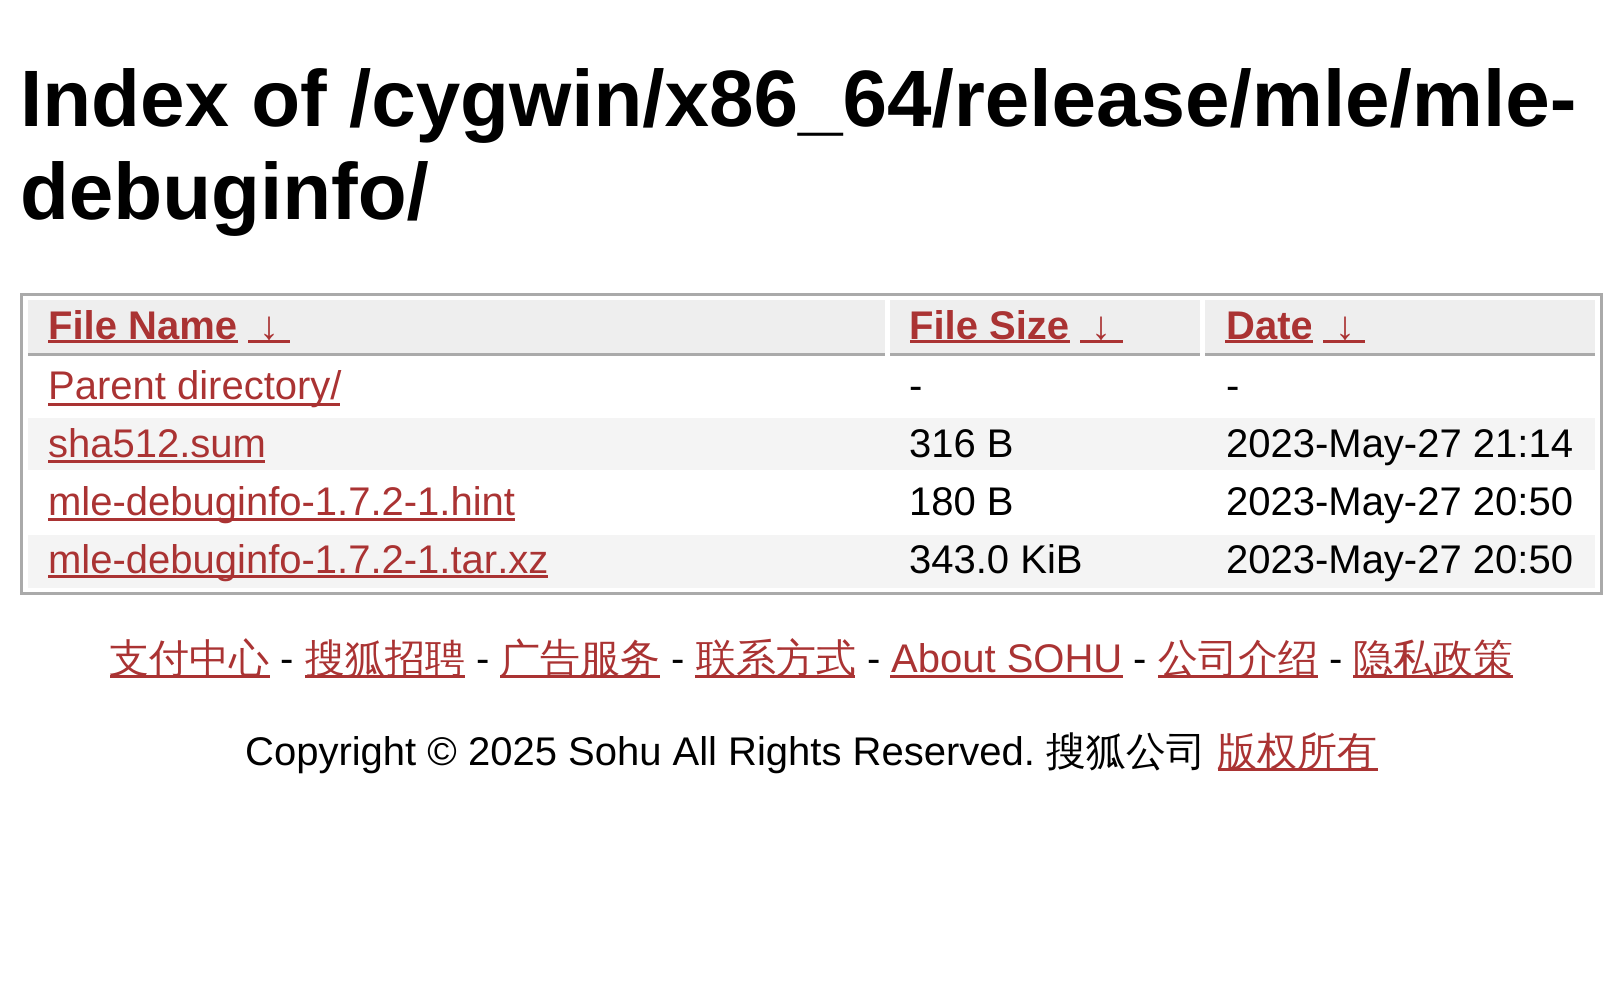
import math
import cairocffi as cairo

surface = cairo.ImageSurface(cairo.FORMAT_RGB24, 1622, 981)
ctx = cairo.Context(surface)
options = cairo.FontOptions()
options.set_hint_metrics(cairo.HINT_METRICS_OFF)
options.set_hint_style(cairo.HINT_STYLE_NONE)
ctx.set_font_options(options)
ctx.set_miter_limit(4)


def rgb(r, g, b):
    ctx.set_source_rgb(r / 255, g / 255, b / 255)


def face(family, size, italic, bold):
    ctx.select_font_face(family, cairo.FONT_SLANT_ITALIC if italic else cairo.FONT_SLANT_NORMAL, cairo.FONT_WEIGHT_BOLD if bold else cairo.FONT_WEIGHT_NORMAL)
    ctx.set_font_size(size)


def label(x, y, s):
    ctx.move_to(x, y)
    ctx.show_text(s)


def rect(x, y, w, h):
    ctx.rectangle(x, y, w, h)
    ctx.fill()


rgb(255, 255, 255)
ctx.paint()
face('Liberation Sans', 80, 0, 1)
rgb(0, 0, 0)
label(20, 126, 'Index of /cygwin/x86_64/release/mle/mle-')
label(20, 219, 'debuginfo/')
ctx.rectangle(21.5, 294.5, 1580, 299)
rgb(170, 170, 170)
ctx.set_line_width(3)
ctx.stroke()
rgb(238, 238, 238)
rect(28, 300, 857, 53)
rgb(170, 170, 170)
rect(28, 353, 857, 3)
face('Liberation Sans', 40, 0, 1)
rgb(170, 51, 51)
label(48, 339, 'File Name')
rect(48, 340, 190, 3)
rect(248, 340, 42, 3)
label(259, 339, '↓')
rgb(238, 238, 238)
rect(890, 300, 310, 53)
rgb(170, 170, 170)
rect(890, 353, 310, 3)
rgb(170, 51, 51)
label(909, 339, 'File Size')
rect(910, 340, 160, 3)
rect(1080, 340, 43, 3)
label(1091, 339, '↓')
rgb(238, 238, 238)
rect(1205, 300, 390, 53)
rgb(170, 170, 170)
rect(1205, 353, 390, 3)
rgb(170, 51, 51)
label(1226, 339, 'Date')
rect(1225, 340, 88, 3)
rect(1323, 340, 42, 3)
label(1335, 339, '↓')
rect(48, 403, 292, 3)
face('Liberation Sans', 40, 0, 0)
label(48, 399, 'Parent directory/')
rgb(0, 0, 0)
label(909, 399, '-')
label(1226, 399, '-')
rgb(244, 244, 244)
rect(28, 418, 1567, 52)
rgb(170, 51, 51)
label(48, 457, 'sha512.sum')
rect(48, 460, 217, 3)
rgb(0, 0, 0)
label(909, 457, '316 B')
label(1226, 457, '2023-May-27 21:14')
rgb(170, 51, 51)
rect(48, 518, 467, 3)
label(48, 515, 'mle-debuginfo-1.7.2-1.hint')
rgb(0, 0, 0)
label(909, 515, '180 B')
label(1226, 515, '2023-May-27 20:50')
rgb(244, 244, 244)
rect(28, 535, 1567, 53)
rgb(170, 51, 51)
rect(48, 575, 500, 3)
label(48, 573, 'mle-debuginfo-1.7.2-1.tar.xz')
rgb(0, 0, 0)
label(909, 573, '343.0 KiB')
label(1226, 573, '2023-May-27 20:50')
rgb(170, 51, 51)
rect(110, 675, 160, 3)
face('WenQuanYi Zen Hei Medium', 40, 0, 0)
label(109, 672, '支付中心')
face('Liberation Sans', 40, 0, 0)
rgb(0, 0, 0)
label(280, 672, '-')
rgb(170, 51, 51)
rect(305, 675, 160, 3)
face('WenQuanYi Zen Hei Medium', 40, 0, 0)
label(305, 672, '搜狐招聘')
face('Liberation Sans', 40, 0, 0)
rgb(0, 0, 0)
label(476, 672, '-')
rgb(170, 51, 51)
rect(500, 675, 160, 3)
face('WenQuanYi Zen Hei Medium', 40, 0, 0)
label(500, 672, '广告服务')
face('Liberation Sans', 40, 0, 0)
rgb(0, 0, 0)
label(671, 672, '-')
rgb(170, 51, 51)
rect(695, 675, 160, 3)
face('WenQuanYi Zen Hei Medium', 40, 0, 0)
label(696, 672, '联系方式')
face('Liberation Sans', 40, 0, 0)
rgb(0, 0, 0)
label(867, 672, '-')
rgb(170, 51, 51)
label(891, 672, 'About SOHU')
rect(890, 675, 233, 3)
rgb(0, 0, 0)
label(1133, 672, '-')
rgb(170, 51, 51)
rect(1158, 675, 160, 3)
face('WenQuanYi Zen Hei Medium', 40, 0, 0)
label(1158, 672, '公司介绍')
face('Liberation Sans', 40, 0, 0)
rgb(0, 0, 0)
label(1329, 672, '-')
rgb(170, 51, 51)
rect(1353, 675, 160, 3)
face('WenQuanYi Zen Hei Medium', 40, 0, 0)
label(1353, 672, '隐私政策')
face('Liberation Sans', 40, 0, 0)
rgb(0, 0, 0)
label(245, 765, 'Copyright © 2025 Sohu All Rights Reserved.')
face('WenQuanYi Zen Hei Medium', 40, 0, 0)
label(1046, 765, '搜狐公司')
rgb(170, 51, 51)
rect(1218, 768, 160, 3)
label(1217, 765, '版权所有')
surface.write_to_png('render.png')
